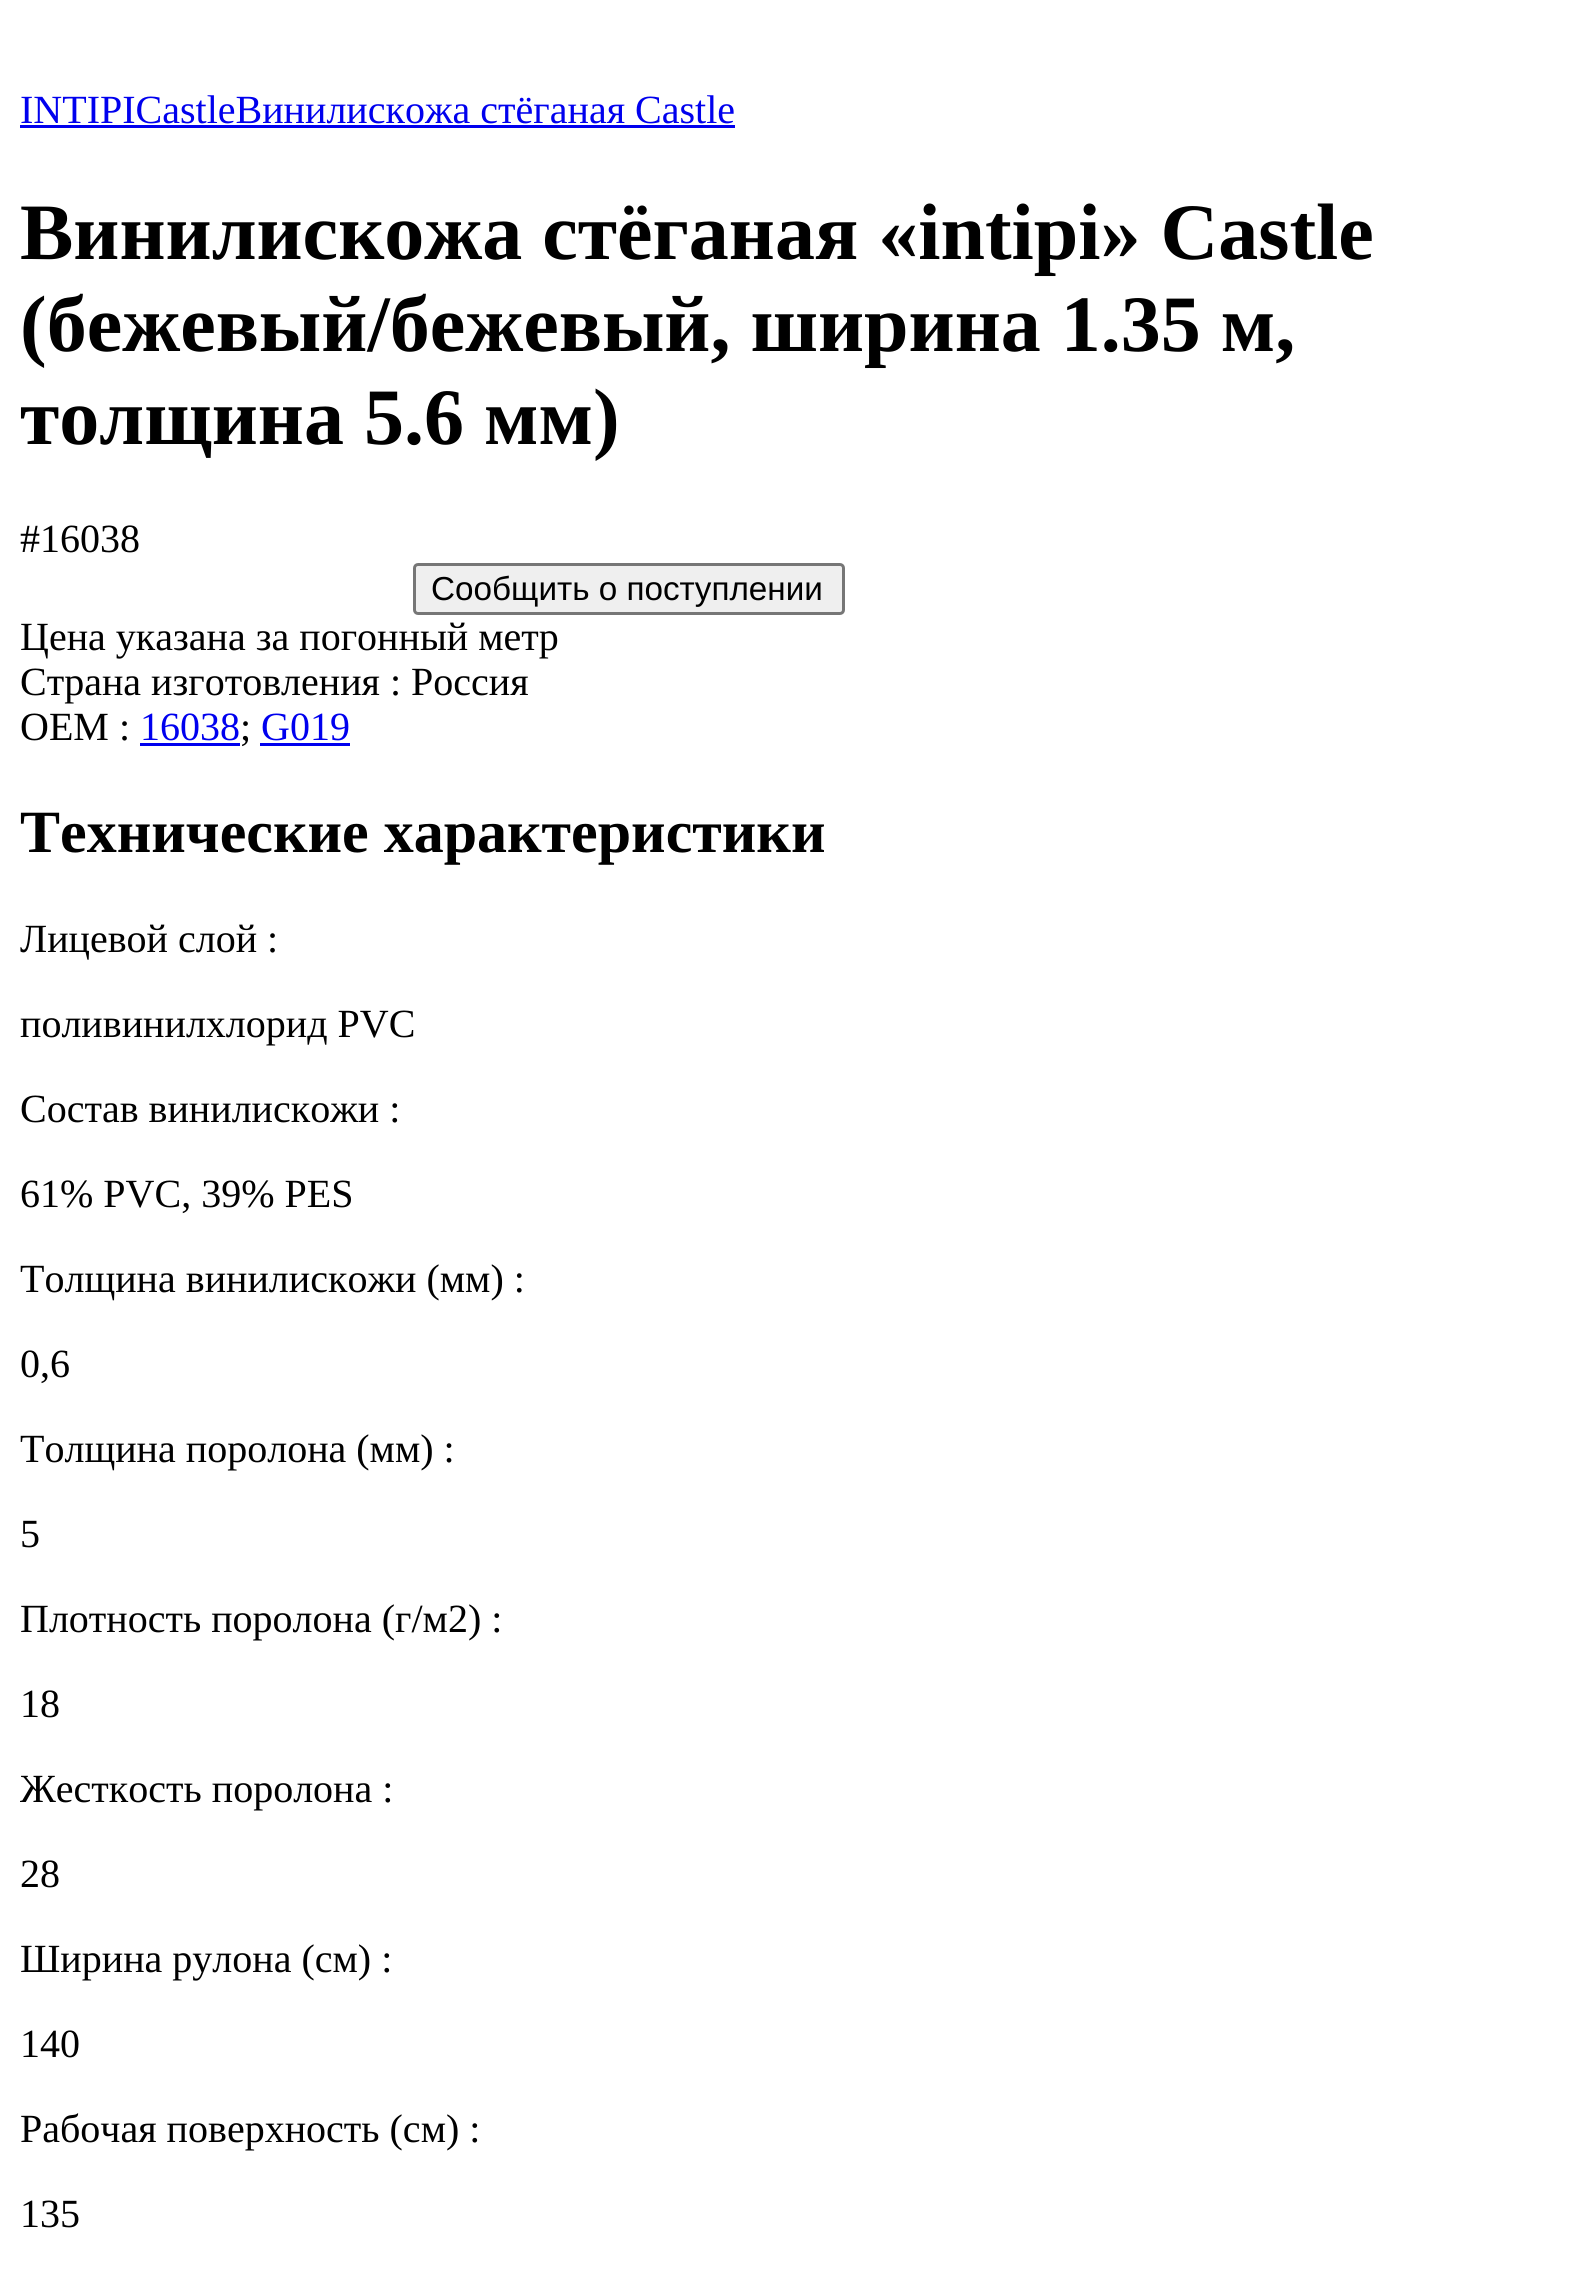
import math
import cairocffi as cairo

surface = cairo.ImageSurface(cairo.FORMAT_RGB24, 1572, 2283)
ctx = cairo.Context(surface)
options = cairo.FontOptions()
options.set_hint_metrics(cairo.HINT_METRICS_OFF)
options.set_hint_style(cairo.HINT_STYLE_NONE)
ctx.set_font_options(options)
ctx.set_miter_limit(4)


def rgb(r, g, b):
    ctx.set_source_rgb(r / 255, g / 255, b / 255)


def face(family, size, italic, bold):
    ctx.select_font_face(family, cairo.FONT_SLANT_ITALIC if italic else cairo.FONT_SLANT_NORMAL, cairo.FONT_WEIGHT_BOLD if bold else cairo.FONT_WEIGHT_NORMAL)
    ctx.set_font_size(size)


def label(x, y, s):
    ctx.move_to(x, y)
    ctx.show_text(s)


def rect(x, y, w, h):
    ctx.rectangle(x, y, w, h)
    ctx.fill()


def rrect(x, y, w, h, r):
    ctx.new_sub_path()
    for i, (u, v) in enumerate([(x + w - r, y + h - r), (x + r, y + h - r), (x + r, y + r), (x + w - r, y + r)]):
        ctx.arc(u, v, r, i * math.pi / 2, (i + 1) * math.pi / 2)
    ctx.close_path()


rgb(255, 255, 255)
ctx.paint()
face('Liberation Serif', 40, 0, 0)
rgb(0, 0, 238)
label(20, 123, 'INTIPICastleВинилискожа стёганая Castle')
rect(20, 125, 715, 3)
face('Liberation Serif', 80, 0, 1)
rgb(0, 0, 0)
label(20, 259, 'Винилискожа стёганая «intipi» Castle')
label(20, 351, '(бежевый/бежевый, ширина 1.35 м,')
label(20, 444, 'толщина 5.6 мм)')
face('Liberation Serif', 40, 0, 0)
label(20, 552, '#16038')
rgb(239, 239, 239)
rrect(414.5, 564.5, 429, 49, 3.5)
ctx.fill_preserve()
rgb(118, 118, 118)
ctx.set_line_width(3)
ctx.stroke()
face('Liberation Sans', 33.25, 0, 0)
rgb(0, 0, 0)
label(431, 600, 'Сообщить о поступлении')
face('Liberation Serif', 40, 0, 0)
label(20, 650, 'Цена указана за погонный метр')
label(20, 695, 'Страна изготовления : Россия')
label(20, 740, 'OEM :')
rgb(0, 0, 238)
label(140, 740, '16038')
rect(140, 743, 100, 3)
rgb(0, 0, 0)
label(240, 740, ';')
rgb(0, 0, 238)
label(261, 740, 'G019')
rect(260, 743, 90, 3)
face('Liberation Serif', 60, 0, 1)
rgb(0, 0, 0)
label(20, 852, 'Технические характеристики')
face('Liberation Serif', 40, 0, 0)
label(20, 952, 'Лицевой слой :')
label(20, 1037, 'поливинилхлорид PVC')
label(20, 1122, 'Состав винилискожи :')
label(20, 1207, '61% PVC, 39% PES')
label(20, 1292, 'Толщина винилискожи (мм) :')
label(20, 1377, '0,6')
label(20, 1462, 'Толщина поролона (мм) :')
label(20, 1547, '5')
label(20, 1632, 'Плотность поролона (г/м2) :')
label(20, 1717, '18')
label(20, 1802, 'Жесткость поролона :')
label(20, 1887, '28')
label(20, 1972, 'Ширина рулона (см) :')
label(20, 2057, '140')
label(20, 2142, 'Рабочая поверхность (см) :')
label(20, 2227, '135')
surface.write_to_png('render.png')
